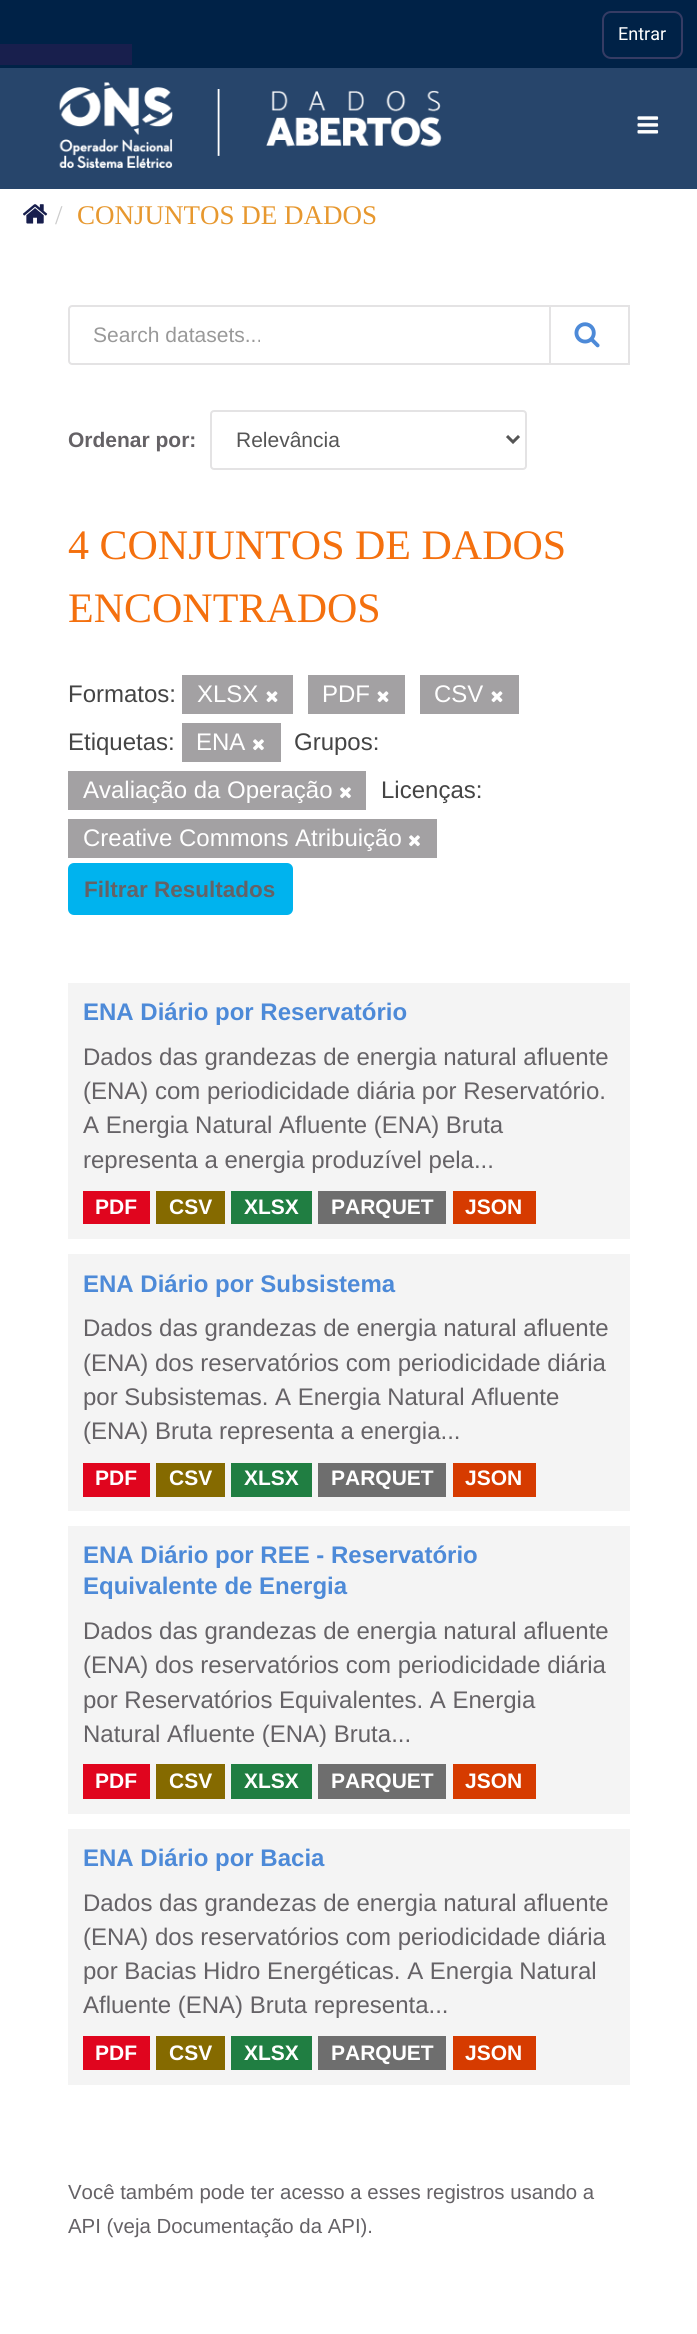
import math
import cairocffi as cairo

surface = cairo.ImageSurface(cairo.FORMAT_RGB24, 697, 2334)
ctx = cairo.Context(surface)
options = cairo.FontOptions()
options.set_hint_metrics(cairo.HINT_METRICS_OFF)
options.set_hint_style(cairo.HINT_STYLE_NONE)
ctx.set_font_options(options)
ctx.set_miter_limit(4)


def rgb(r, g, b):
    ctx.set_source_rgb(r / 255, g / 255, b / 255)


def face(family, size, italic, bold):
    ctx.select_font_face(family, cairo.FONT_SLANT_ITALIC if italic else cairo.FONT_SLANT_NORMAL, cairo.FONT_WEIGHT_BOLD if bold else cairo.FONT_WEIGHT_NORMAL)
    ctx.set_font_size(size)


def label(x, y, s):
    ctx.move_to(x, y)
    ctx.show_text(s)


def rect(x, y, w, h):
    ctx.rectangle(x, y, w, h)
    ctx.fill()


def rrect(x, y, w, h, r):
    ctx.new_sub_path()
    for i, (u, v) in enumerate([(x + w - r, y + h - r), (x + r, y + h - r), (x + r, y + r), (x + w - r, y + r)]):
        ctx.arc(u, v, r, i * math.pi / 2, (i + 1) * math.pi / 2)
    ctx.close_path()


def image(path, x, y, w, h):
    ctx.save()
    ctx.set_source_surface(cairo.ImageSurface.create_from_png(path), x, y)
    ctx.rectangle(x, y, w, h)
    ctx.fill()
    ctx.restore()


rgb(255, 255, 255)
ctx.paint()
rgb(0, 34, 71)
rect(0, 0, 697, 68)
rrect(603, 12, 79, 46, 8)
rgb(54, 60, 100)
ctx.stroke()
face('Roboto', 18, 0, 0)
rgb(255, 255, 255)
label(618, 40, 'Entrar')
rgb(24, 31, 77)
rect(0, 44, 132, 21)
rgb(39, 69, 107)
rect(0, 68, 697, 121)
image('image0.png', 59, 82, 383, 87)
image('image1.png', 637, 116, 22, 18)
image('image2.png', 23, 204, 25, 20)
face('Liberation Serif', 27, 0, 0)
rgb(204, 204, 204)
label(55, 224, '/')
rgb(231, 152, 47)
label(77, 224, 'CONJUNTOS DE DADOS')
ctx.new_path()
ctx.move_to(72, 306)
ctx.line_to(550, 306)
ctx.line_to(550, 364)
ctx.line_to(72, 364)
ctx.curve_to(70.5, 364, 69, 362.5, 69, 361)
ctx.line_to(69, 309)
ctx.curve_to(69, 307.5, 70.5, 306, 72, 306)
ctx.close_path()
rgb(228, 227, 228)
ctx.stroke()
face('Liberation Sans', 21, 0, 0)
rgb(153, 153, 153)
label(93, 342, 'Search datasets...')
ctx.rectangle(550, 306, 79, 58)
rgb(228, 227, 228)
ctx.stroke()
image('image3.png', 574, 322, 26, 26)
face('Liberation Sans', 21, 0, 1)
rgb(101, 98, 102)
label(68, 447, 'Ordenar por:')
rrect(211, 411, 315, 58, 3)
rgb(228, 227, 228)
ctx.stroke()
ctx.new_path()
ctx.move_to(507, 436)
ctx.line_to(513, 442)
ctx.line_to(519, 436)
rgb(85, 85, 85)
ctx.set_line_width(3)
ctx.stroke()
face('Liberation Sans', 21, 0, 0)
label(236, 447, 'Relevância')
face('Liberation Serif', 42, 0, 0)
rgb(244, 112, 14)
label(68, 559, '4 CONJUNTOS DE DADOS')
label(68, 622, 'ENCONTRADOS')
face('Liberation Sans', 24, 0, 0)
rgb(68, 68, 68)
label(68, 702, 'Formatos:')
rgb(163, 161, 163)
rect(182, 675, 111, 39)
rgb(255, 255, 255)
label(197, 702, 'XLSX')
image('image4.png', 266, 691, 12, 12)
rgb(163, 161, 163)
rect(308, 675, 97, 39)
rgb(255, 255, 255)
label(322, 702, 'PDF')
image('image4.png', 377, 691, 12, 12)
rgb(163, 161, 163)
rect(420, 675, 99, 39)
rgb(255, 255, 255)
label(434, 702, 'CSV')
image('image4.png', 491, 691, 12, 12)
rgb(68, 68, 68)
label(68, 750, 'Etiquetas:')
rgb(163, 161, 163)
rect(182, 723, 99, 39)
rgb(255, 255, 255)
label(196, 750, 'ENA')
image('image5.png', 253, 739, 11, 12)
rgb(68, 68, 68)
label(294, 750, 'Grupos:')
rgb(163, 161, 163)
rect(68, 771, 298, 39)
rgb(255, 255, 255)
label(83, 798, 'Avaliação da Operação')
image('image5.png', 340, 787, 11, 12)
rgb(68, 68, 68)
label(381, 798, 'Licenças:')
rgb(163, 161, 163)
rect(68, 819, 369, 39)
rgb(255, 255, 255)
label(83, 846, 'Creative Commons Atribuição')
image('image5.png', 409, 835, 11, 12)
rgb(0, 179, 238)
rrect(69, 864, 223, 50, 5)
ctx.fill_preserve()
ctx.set_line_width(2)
ctx.stroke()
face('Liberation Sans', 22.5, 0, 1)
rgb(101, 98, 102)
label(84, 897, 'Filtrar Resultados')
rgb(244, 244, 244)
rect(68, 983, 562, 256)
face('Liberation Sans', 24, 0, 1)
rgb(77, 138, 216)
label(83, 1020, 'ENA Diário por Reservatório')
face('Liberation Sans', 24, 0, 0)
rgb(101, 98, 102)
label(83, 1065, 'Dados das grandezas de energia natural afluente')
label(83, 1099, '(ENA) com periodicidade diária por Reservatório.')
label(83, 1133, 'A Energia Natural Afluente (ENA) Bruta')
label(83, 1168, 'representa a energia produzível pela...')
rgb(224, 5, 30)
rect(83, 1191, 67, 33)
face('Liberation Sans', 21, 0, 1)
rgb(255, 255, 255)
label(95, 1214, 'PDF')
rgb(133, 106, 0)
rect(156, 1191, 69, 33)
rgb(255, 255, 255)
label(169, 1214, 'CSV')
rgb(32, 126, 66)
rect(231, 1191, 81, 33)
rgb(255, 255, 255)
label(244, 1214, 'XLSX')
rgb(110, 110, 110)
rect(318, 1191, 128, 33)
rgb(255, 255, 255)
label(331, 1214, 'PARQUET')
rgb(214, 59, 0)
rect(453, 1191, 83, 33)
rgb(255, 255, 255)
label(465, 1214, 'JSON')
rgb(244, 244, 244)
rect(68, 1254, 562, 257)
face('Liberation Sans', 24, 0, 1)
rgb(77, 138, 216)
label(83, 1292, 'ENA Diário por Subsistema')
face('Liberation Sans', 24, 0, 0)
rgb(101, 98, 102)
label(83, 1336, 'Dados das grandezas de energia natural afluente')
label(83, 1371, '(ENA) dos reservatórios com periodicidade diária')
label(83, 1405, 'por Subsistemas. A Energia Natural Afluente')
label(83, 1439, '(ENA) Bruta representa a energia...')
rgb(224, 5, 30)
rect(83, 1463, 67, 34)
face('Liberation Sans', 21, 0, 1)
rgb(255, 255, 255)
label(95, 1485, 'PDF')
rgb(133, 106, 0)
rect(156, 1463, 69, 34)
rgb(255, 255, 255)
label(169, 1485, 'CSV')
rgb(32, 126, 66)
rect(231, 1463, 81, 34)
rgb(255, 255, 255)
label(244, 1485, 'XLSX')
rgb(110, 110, 110)
rect(318, 1463, 128, 34)
rgb(255, 255, 255)
label(331, 1485, 'PARQUET')
rgb(214, 59, 0)
rect(453, 1463, 83, 34)
rgb(255, 255, 255)
label(465, 1485, 'JSON')
rgb(244, 244, 244)
rect(68, 1526, 562, 288)
face('Liberation Sans', 24, 0, 1)
rgb(77, 138, 216)
label(83, 1563, 'ENA Diário por REE - Reservatório')
label(83, 1594, 'Equivalente de Energia')
face('Liberation Sans', 24, 0, 0)
rgb(101, 98, 102)
label(83, 1639, 'Dados das grandezas de energia natural afluente')
label(83, 1673, '(ENA) dos reservatórios com periodicidade diária')
label(83, 1708, 'por Reservatórios Equivalentes. A Energia')
label(83, 1742, 'Natural Afluente (ENA) Bruta...')
rgb(224, 5, 30)
rect(83, 1764, 67, 35)
face('Liberation Sans', 21, 0, 1)
rgb(255, 255, 255)
label(95, 1788, 'PDF')
rgb(133, 106, 0)
rect(156, 1764, 69, 35)
rgb(255, 255, 255)
label(169, 1788, 'CSV')
rgb(32, 126, 66)
rect(231, 1764, 81, 35)
rgb(255, 255, 255)
label(244, 1788, 'XLSX')
rgb(110, 110, 110)
rect(318, 1764, 128, 35)
rgb(255, 255, 255)
label(331, 1788, 'PARQUET')
rgb(214, 59, 0)
rect(453, 1764, 83, 35)
rgb(255, 255, 255)
label(465, 1788, 'JSON')
rgb(244, 244, 244)
rect(68, 1829, 562, 256)
face('Liberation Sans', 24, 0, 1)
rgb(77, 138, 216)
label(83, 1866, 'ENA Diário por Bacia')
face('Liberation Sans', 24, 0, 0)
rgb(101, 98, 102)
label(83, 1911, 'Dados das grandezas de energia natural afluente')
label(83, 1945, '(ENA) dos reservatórios com periodicidade diária')
label(83, 1979, 'por Bacias Hidro Energéticas. A Energia Natural')
label(83, 2013, 'Afluente (ENA) Bruta representa...')
rgb(224, 5, 30)
rect(83, 2036, 67, 34)
face('Liberation Sans', 21, 0, 1)
rgb(255, 255, 255)
label(95, 2060, 'PDF')
rgb(133, 106, 0)
rect(156, 2036, 69, 34)
rgb(255, 255, 255)
label(169, 2060, 'CSV')
rgb(32, 126, 66)
rect(231, 2036, 81, 34)
rgb(255, 255, 255)
label(244, 2060, 'XLSX')
rgb(110, 110, 110)
rect(318, 2036, 128, 34)
rgb(255, 255, 255)
label(331, 2060, 'PARQUET')
rgb(214, 59, 0)
rect(453, 2036, 83, 34)
rgb(255, 255, 255)
label(465, 2060, 'JSON')
face('Liberation Sans', 20.4, 0, 0)
rgb(101, 98, 102)
label(68, 2199, 'Você também pode ter acesso a esses registros usando a')
label(68, 2233, 'API (veja Documentação da API).')
surface.write_to_png('render.png')
